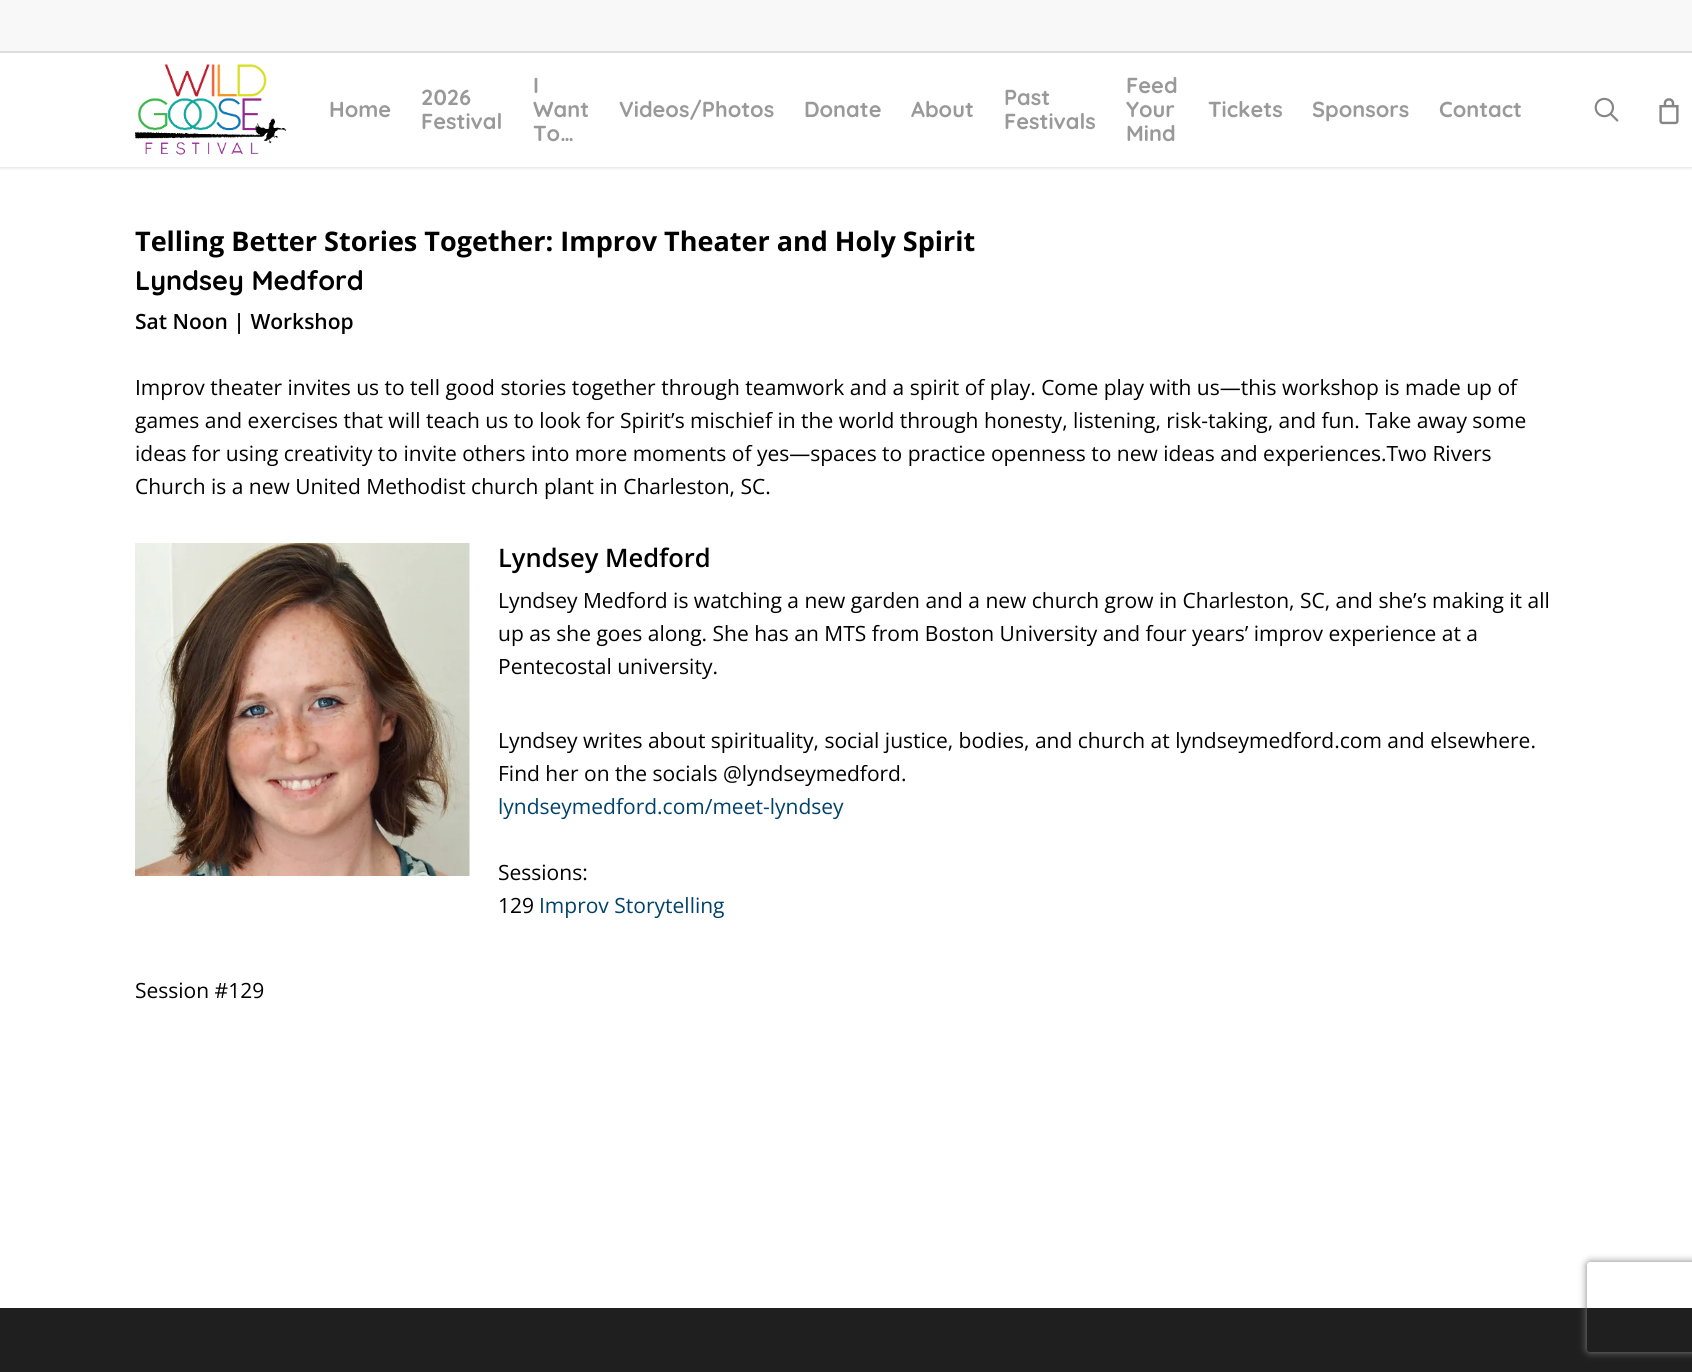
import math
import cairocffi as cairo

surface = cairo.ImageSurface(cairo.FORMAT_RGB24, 1692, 1372)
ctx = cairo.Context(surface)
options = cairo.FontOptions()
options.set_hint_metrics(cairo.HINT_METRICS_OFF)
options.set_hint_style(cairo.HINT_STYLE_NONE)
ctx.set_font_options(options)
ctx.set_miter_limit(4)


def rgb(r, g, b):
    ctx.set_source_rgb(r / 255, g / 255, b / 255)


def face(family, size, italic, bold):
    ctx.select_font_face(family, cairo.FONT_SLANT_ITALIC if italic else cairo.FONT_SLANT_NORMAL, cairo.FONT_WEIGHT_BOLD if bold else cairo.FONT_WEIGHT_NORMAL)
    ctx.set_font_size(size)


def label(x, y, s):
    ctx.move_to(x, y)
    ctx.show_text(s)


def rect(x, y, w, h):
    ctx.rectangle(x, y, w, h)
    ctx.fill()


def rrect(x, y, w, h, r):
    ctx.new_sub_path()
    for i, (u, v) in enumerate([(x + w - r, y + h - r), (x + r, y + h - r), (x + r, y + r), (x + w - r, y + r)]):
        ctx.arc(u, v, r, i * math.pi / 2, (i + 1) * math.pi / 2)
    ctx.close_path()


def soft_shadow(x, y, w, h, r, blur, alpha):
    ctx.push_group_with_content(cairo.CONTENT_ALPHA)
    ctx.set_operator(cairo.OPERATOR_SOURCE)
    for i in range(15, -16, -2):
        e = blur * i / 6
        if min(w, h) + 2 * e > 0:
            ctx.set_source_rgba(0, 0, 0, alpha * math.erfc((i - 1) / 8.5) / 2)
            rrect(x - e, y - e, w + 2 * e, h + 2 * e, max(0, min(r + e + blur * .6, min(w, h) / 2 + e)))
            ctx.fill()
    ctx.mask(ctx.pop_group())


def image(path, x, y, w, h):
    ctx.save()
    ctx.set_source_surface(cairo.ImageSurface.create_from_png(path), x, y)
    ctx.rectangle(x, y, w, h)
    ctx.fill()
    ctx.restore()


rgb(255, 255, 255)
ctx.paint()
rgb(0, 0, 0)
soft_shadow(0, 0, 1692, 167, 0, 2, 0.22)
rgb(255, 255, 255)
rect(0, 53, 1692, 114)
rgb(248, 248, 248)
rect(0, 0, 1692, 51)
rgb(221, 221, 221)
rect(0, 51, 1692, 2)
image('image0.png', 135, 64, 152, 91)
face('Quicksand Light', 21.75, 0, 0)
rgb(153, 153, 153)
label(329, 117, 'Home')
label(421, 105, '2026')
label(421, 129, 'Festival')
label(533, 93, 'I')
label(533, 117, 'Want')
label(533, 141, 'To…')
label(619, 117, 'Videos/Photos')
label(804, 117, 'Donate')
label(911, 117, 'About')
label(1004, 105, 'Past')
label(1004, 129, 'Festivals')
label(1126, 93, 'Feed')
label(1126, 117, 'Your')
label(1126, 141, 'Mind')
label(1208, 117, 'Tickets')
label(1312, 117, 'Sponsors')
label(1439, 117, 'Contact')
image('image1.png', 1594, 97, 25, 25)
image('image2.png', 1659, 98, 20, 27)
face('Open Sans', 27, 0, 1)
rgb(0, 0, 0)
label(135, 251, 'Telling Better Stories Together: Improv Theater and Holy Spirit')
face('Quicksand Light', 27, 0, 0)
label(135, 290, 'Lyndsey Medford')
face('Open Sans SemiBold', 21, 0, 0)
label(135, 329, 'Sat Noon | Workshop')
face('Open Sans', 21, 0, 0)
label(135, 395, 'Improv theater invites us to tell good stories together through teamwork and a spirit of play. Come play with us—this workshop is made up of')
label(135, 428, 'games and exercises that will teach us to look for Spirit’s mischief in the world through honesty, listening, risk-taking, and fun. Take away some')
label(135, 461, 'ideas for using creativity to invite others into more moments of yes—spaces to practice openness to new ideas and experiences.Two Rivers')
label(135, 494, 'Church is a new United Methodist church plant in Charleston, SC.')
image('image3.png', 135, 543, 335, 333)
face('Open Sans SemiBold', 25.5, 0, 0)
label(498, 567, 'Lyndsey Medford')
face('Open Sans', 21, 0, 0)
label(498, 608, 'Lyndsey Medford is watching a new garden and a new church grow in Charleston, SC, and she’s making it all')
label(498, 641, 'up as she goes along. She has an MTS from Boston University and four years’ improv experience at a')
label(498, 674, 'Pentecostal university.')
label(498, 748, 'Lyndsey writes about spirituality, social justice, bodies, and church at lyndseymedford.com and elsewhere.')
label(498, 781, 'Find her on the socials @lyndseymedford.')
rgb(1, 66, 106)
label(498, 814, 'lyndseymedford.com/meet-lyndsey')
rgb(0, 0, 0)
label(498, 880, 'Sessions:')
label(498, 913, '129')
rgb(1, 66, 106)
label(539, 913, 'Improv Storytelling')
rgb(0, 0, 0)
label(135, 998, 'Session #129')
rgb(31, 31, 31)
rect(0, 1308, 1692, 64)
ctx.save()
ctx.set_fill_rule(cairo.FILL_RULE_EVEN_ODD)
ctx.new_path()
ctx.move_to(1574, 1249)
ctx.line_to(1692, 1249)
ctx.line_to(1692, 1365)
ctx.line_to(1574, 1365)
ctx.close_path()
ctx.move_to(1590, 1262)
ctx.line_to(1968, 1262)
ctx.curve_to(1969.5, 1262, 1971, 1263.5, 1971, 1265)
ctx.line_to(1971, 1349)
ctx.curve_to(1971, 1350.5, 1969.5, 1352, 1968, 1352)
ctx.line_to(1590, 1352)
ctx.curve_to(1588.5, 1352, 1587, 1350.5, 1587, 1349)
ctx.line_to(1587, 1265)
ctx.curve_to(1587, 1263.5, 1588.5, 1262, 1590, 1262)
ctx.close_path()
ctx.clip()
rgb(128, 128, 128)
soft_shadow(1587, 1262, 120, 90, 3, 4, 1)
ctx.restore()
surface.write_to_png('render.png')
